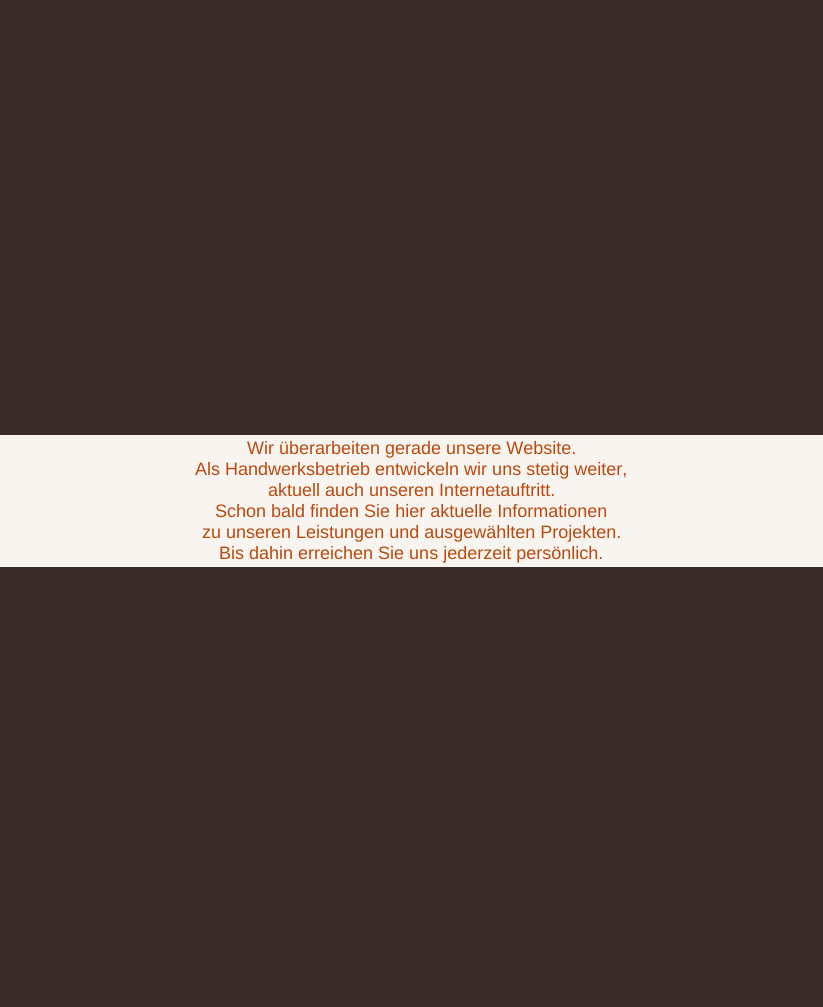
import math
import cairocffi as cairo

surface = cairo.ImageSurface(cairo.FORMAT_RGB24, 823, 1007)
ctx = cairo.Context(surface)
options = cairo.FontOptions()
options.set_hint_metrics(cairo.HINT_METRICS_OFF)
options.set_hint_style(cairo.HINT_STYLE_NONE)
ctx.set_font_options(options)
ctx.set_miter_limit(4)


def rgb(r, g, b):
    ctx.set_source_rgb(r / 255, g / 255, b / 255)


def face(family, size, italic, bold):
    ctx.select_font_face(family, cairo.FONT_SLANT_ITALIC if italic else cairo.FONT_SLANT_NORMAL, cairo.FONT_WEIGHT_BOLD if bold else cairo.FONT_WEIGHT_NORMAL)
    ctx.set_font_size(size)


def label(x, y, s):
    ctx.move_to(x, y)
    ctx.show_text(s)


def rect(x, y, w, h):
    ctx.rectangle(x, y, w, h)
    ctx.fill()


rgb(59, 42, 42)
ctx.paint()
rgb(248, 245, 241)
rect(0, 435, 823, 132)
face('Liberation Sans', 18, 0, 0)
rgb(187, 72, 12)
label(247, 454, 'Wir überarbeiten gerade unsere Website.')
label(195, 475, 'Als Handwerksbetrieb entwickeln wir uns stetig weiter,')
label(268, 496, 'aktuell auch unseren Internetauftritt.')
label(215, 517, 'Schon bald finden Sie hier aktuelle Informationen')
label(202, 538, 'zu unseren Leistungen und ausgewählten Projekten.')
label(219, 559, 'Bis dahin erreichen Sie uns jederzeit persönlich.')
surface.write_to_png('render.png')
